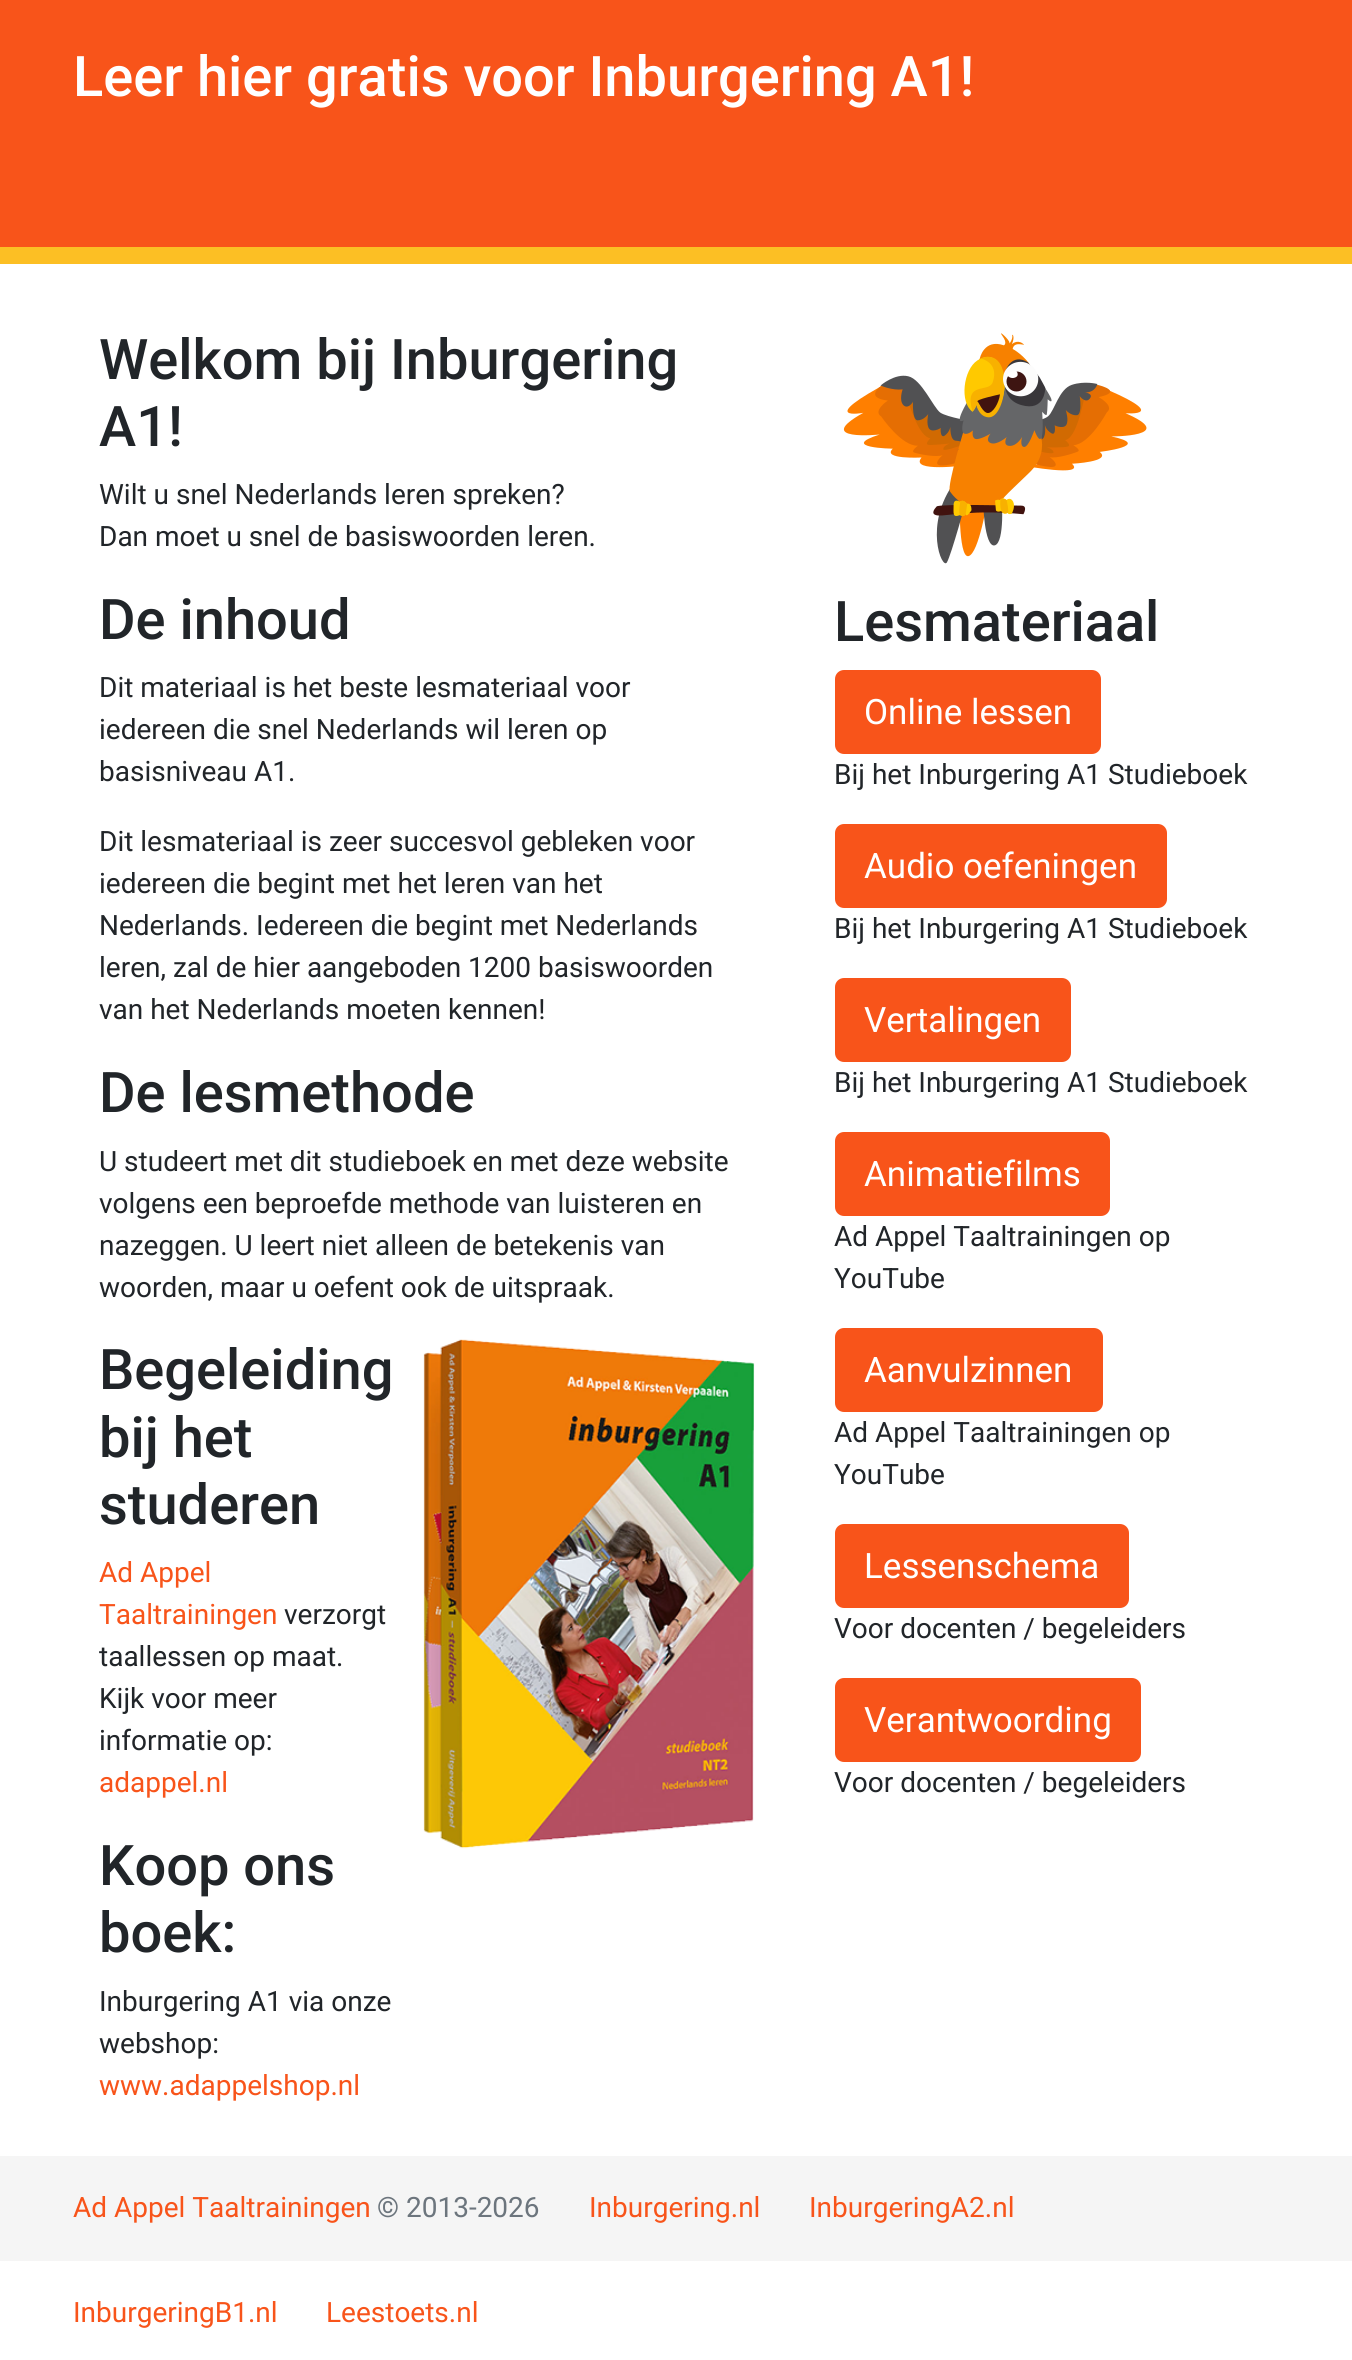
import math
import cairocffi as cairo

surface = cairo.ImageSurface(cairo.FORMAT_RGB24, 1352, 2360)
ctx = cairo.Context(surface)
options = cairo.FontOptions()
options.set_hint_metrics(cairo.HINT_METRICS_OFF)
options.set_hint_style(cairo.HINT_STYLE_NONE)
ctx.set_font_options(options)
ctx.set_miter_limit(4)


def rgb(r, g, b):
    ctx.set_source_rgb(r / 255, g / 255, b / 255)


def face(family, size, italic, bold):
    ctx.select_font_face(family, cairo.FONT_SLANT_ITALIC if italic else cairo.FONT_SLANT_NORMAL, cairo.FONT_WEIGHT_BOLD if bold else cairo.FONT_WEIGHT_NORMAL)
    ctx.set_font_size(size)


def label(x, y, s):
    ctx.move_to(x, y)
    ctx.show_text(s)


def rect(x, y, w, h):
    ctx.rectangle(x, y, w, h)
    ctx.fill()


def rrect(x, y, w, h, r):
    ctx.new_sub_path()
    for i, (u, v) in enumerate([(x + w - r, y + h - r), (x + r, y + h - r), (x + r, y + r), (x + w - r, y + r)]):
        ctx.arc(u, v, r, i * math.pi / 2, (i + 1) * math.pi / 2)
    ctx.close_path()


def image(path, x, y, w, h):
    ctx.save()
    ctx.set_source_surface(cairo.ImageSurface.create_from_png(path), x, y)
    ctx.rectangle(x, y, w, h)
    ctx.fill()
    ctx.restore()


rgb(255, 255, 255)
ctx.paint()
rgb(248, 84, 26)
rect(0, 0, 1352, 247)
rgb(252, 191, 36)
rect(0, 247, 1352, 17)
face('Roboto Medium', 56, 0, 0)
rgb(255, 255, 255)
label(73, 96, 'Leer hier gratis voor Inburgering A1!')
rgb(33, 37, 41)
label(99, 379, 'Welkom bij Inburgering')
label(99, 446, 'A1!')
face('Roboto', 28, 0, 0)
label(99, 504, 'Wilt u snel Nederlands leren spreken?')
label(99, 546, 'Dan moet u snel de basiswoorden leren.')
face('Roboto Medium', 56, 0, 0)
label(99, 639, 'De inhoud')
face('Roboto', 28, 0, 0)
label(99, 697, 'Dit materiaal is het beste lesmateriaal voor')
label(99, 739, 'iedereen die snel Nederlands wil leren op')
label(99, 781, 'basisniveau A1.')
label(99, 851, 'Dit lesmateriaal is zeer succesvol gebleken voor')
label(99, 893, 'iedereen die begint met het leren van het')
label(99, 935, 'Nederlands. Iedereen die begint met Nederlands')
label(99, 977, 'leren, zal de hier aangeboden 1200 basiswoorden')
label(99, 1019, 'van het Nederlands moeten kennen!')
face('Roboto Medium', 56, 0, 0)
label(99, 1112, 'De lesmethode')
face('Roboto', 28, 0, 0)
label(99, 1171, 'U studeert met dit studieboek en met deze website')
label(99, 1213, 'volgens een beproefde methode van luisteren en')
label(99, 1255, 'nazeggen. U leert niet alleen de betekenis van')
label(99, 1297, 'woorden, maar u oefent ook de uitspraak.')
face('Roboto Medium', 56, 0, 0)
label(99, 1389, 'Begeleiding')
label(99, 1457, 'bij het')
label(99, 1524, 'studeren')
face('Roboto', 28, 0, 0)
rgb(248, 84, 26)
label(99, 1582, 'Ad Appel')
label(99, 1624, 'Taaltrainingen')
rgb(33, 37, 41)
label(284, 1624, 'verzorgt')
label(99, 1666, 'taallessen op maat.')
label(99, 1708, 'Kijk voor meer')
label(99, 1750, 'informatie op:')
rgb(248, 84, 26)
label(99, 1792, 'adappel.nl')
face('Roboto Medium', 56, 0, 0)
rgb(33, 37, 41)
label(99, 1885, 'Koop ons')
label(99, 1952, 'boek:')
face('Roboto', 28, 0, 0)
label(99, 2011, 'Inburgering A1 via onze')
label(99, 2053, 'webshop:')
rgb(248, 84, 26)
label(99, 2095, 'www.adappelshop.nl')
image('image0.png', 423, 1339, 332, 510)
image('image1.png', 843, 333, 304, 231)
face('Roboto Medium', 56, 0, 0)
rgb(33, 37, 41)
label(834, 641, 'Lesmateriaal')
rgb(248, 84, 26)
rrect(836, 671, 264, 82, 8)
ctx.fill_preserve()
ctx.stroke()
face('Roboto', 35, 0, 0)
rgb(255, 255, 255)
label(864, 724, 'Online lessen')
face('Roboto', 28, 0, 0)
rgb(33, 37, 41)
label(834, 784, 'Bij het Inburgering A1 Studieboek')
rgb(248, 84, 26)
rrect(836, 825, 330, 82, 8)
ctx.fill_preserve()
ctx.stroke()
face('Roboto', 35, 0, 0)
rgb(255, 255, 255)
label(864, 878, 'Audio oefeningen')
face('Roboto', 28, 0, 0)
rgb(33, 37, 41)
label(834, 938, 'Bij het Inburgering A1 Studieboek')
rgb(248, 84, 26)
rrect(836, 979, 234, 82, 8)
ctx.fill_preserve()
ctx.stroke()
face('Roboto', 35, 0, 0)
rgb(255, 255, 255)
label(864, 1032, 'Vertalingen')
face('Roboto', 28, 0, 0)
rgb(33, 37, 41)
label(834, 1092, 'Bij het Inburgering A1 Studieboek')
rgb(248, 84, 26)
rrect(836, 1133, 273, 82, 8)
ctx.fill_preserve()
ctx.stroke()
face('Roboto', 35, 0, 0)
rgb(255, 255, 255)
label(864, 1186, 'Animatiefilms')
face('Roboto', 28, 0, 0)
rgb(33, 37, 41)
label(834, 1246, 'Ad Appel Taaltrainingen op')
label(834, 1288, 'YouTube')
rgb(248, 84, 26)
rrect(836, 1329, 266, 82, 8)
ctx.fill_preserve()
ctx.stroke()
face('Roboto', 35, 0, 0)
rgb(255, 255, 255)
label(864, 1382, 'Aanvulzinnen')
face('Roboto', 28, 0, 0)
rgb(33, 37, 41)
label(834, 1442, 'Ad Appel Taaltrainingen op')
label(834, 1484, 'YouTube')
rgb(248, 84, 26)
rrect(836, 1525, 292, 82, 8)
ctx.fill_preserve()
ctx.stroke()
face('Roboto', 35, 0, 0)
rgb(255, 255, 255)
label(864, 1578, 'Lessenschema')
face('Roboto', 28, 0, 0)
rgb(33, 37, 41)
label(834, 1638, 'Voor docenten / begeleiders')
rgb(248, 84, 26)
rrect(836, 1679, 304, 82, 8)
ctx.fill_preserve()
ctx.stroke()
face('Roboto', 35, 0, 0)
rgb(255, 255, 255)
label(864, 1732, 'Verantwoording')
face('Roboto', 28, 0, 0)
rgb(33, 37, 41)
label(834, 1792, 'Voor docenten / begeleiders')
rgb(245, 245, 245)
rect(0, 2156, 1352, 105)
rgb(248, 84, 26)
label(73, 2217, 'Ad Appel Taaltrainingen')
rgb(108, 117, 125)
label(377, 2217, '© 2013-2026')
rgb(248, 84, 26)
label(589, 2217, 'Inburgering.nl')
label(809, 2217, 'InburgeringA2.nl')
label(73, 2322, 'InburgeringB1.nl')
label(326, 2322, 'Leestoets.nl')
surface.write_to_png('render.png')
